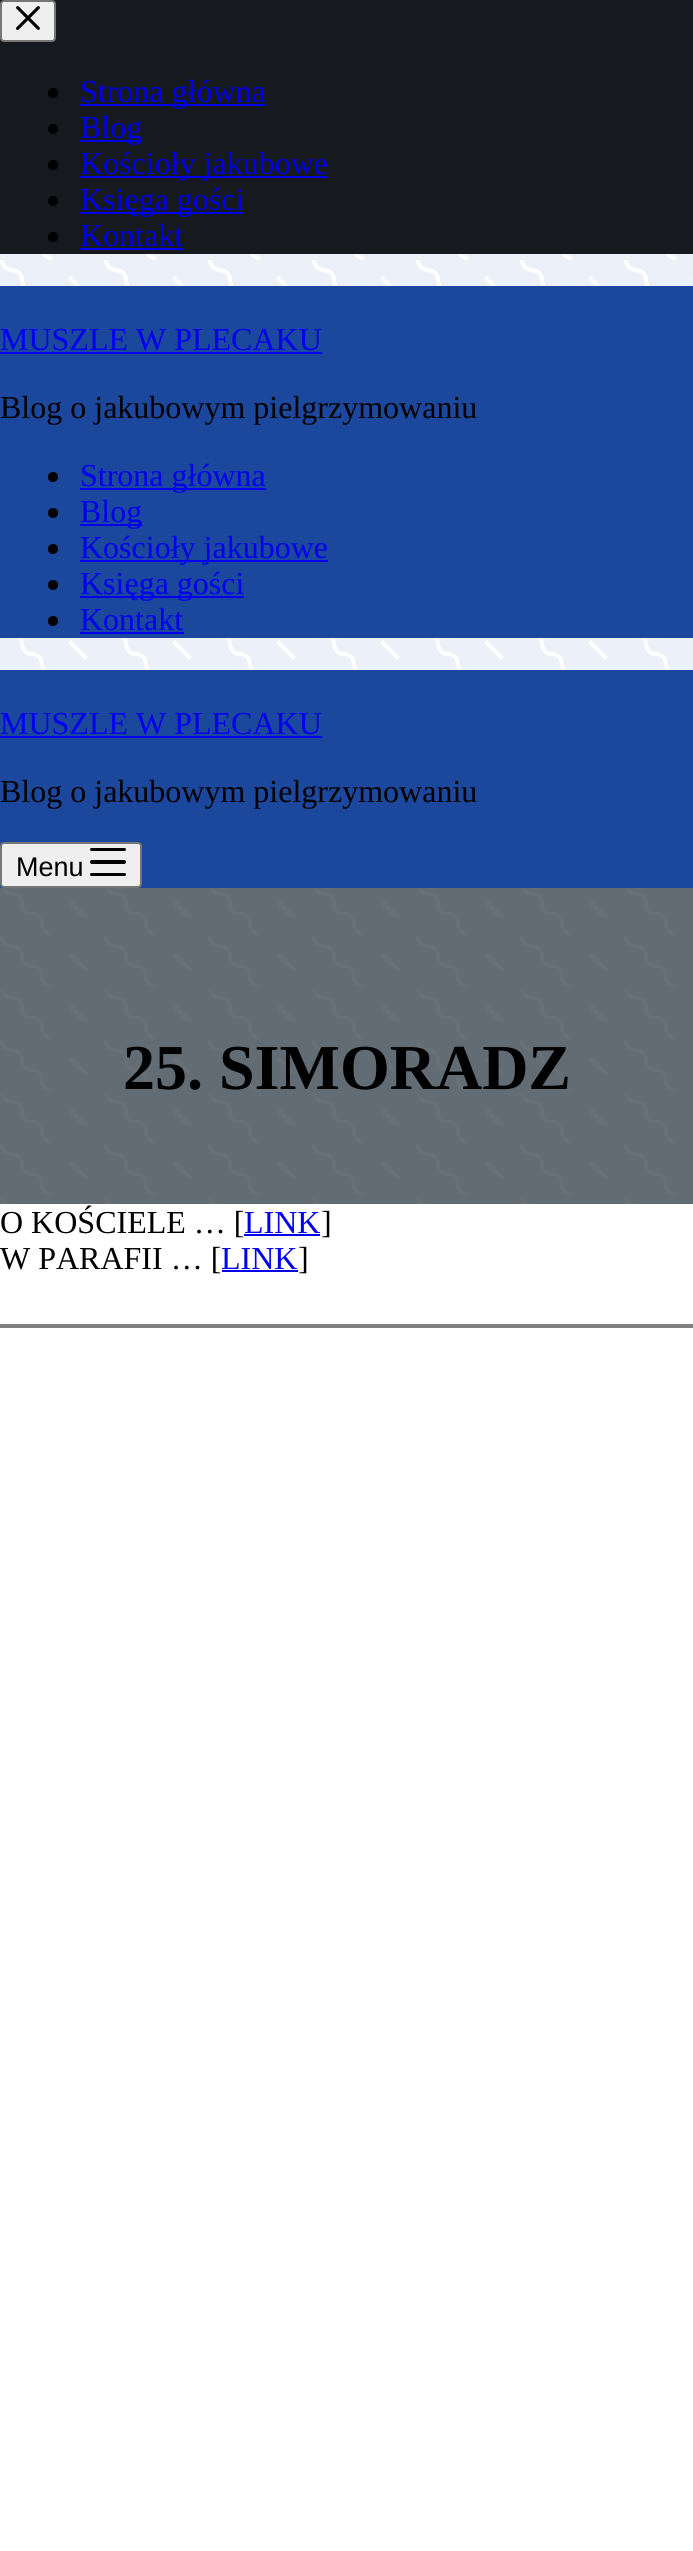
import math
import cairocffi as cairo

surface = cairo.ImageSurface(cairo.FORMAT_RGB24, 693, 2551)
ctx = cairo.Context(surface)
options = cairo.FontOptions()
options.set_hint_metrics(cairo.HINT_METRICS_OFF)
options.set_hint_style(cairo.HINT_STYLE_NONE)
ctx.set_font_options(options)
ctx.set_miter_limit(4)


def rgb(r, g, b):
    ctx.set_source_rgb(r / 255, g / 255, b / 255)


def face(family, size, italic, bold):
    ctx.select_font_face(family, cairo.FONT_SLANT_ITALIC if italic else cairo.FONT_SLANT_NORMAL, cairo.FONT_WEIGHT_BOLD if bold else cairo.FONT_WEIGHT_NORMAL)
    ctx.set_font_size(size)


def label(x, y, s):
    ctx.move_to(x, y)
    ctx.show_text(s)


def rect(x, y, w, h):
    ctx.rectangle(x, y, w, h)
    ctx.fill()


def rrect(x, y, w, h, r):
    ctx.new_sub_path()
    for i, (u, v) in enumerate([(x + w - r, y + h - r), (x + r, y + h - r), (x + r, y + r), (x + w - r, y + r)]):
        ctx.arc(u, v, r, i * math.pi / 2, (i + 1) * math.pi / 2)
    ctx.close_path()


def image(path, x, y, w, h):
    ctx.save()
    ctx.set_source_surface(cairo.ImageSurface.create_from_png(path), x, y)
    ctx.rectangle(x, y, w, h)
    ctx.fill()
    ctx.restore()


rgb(236, 240, 248)
ctx.paint()
image('image0.png', 0, 0, 693, 1204)
ctx.set_source_rgba(0.071, 0.082, 0.098, 0.98)
rect(0, 0, 693, 254)
rgb(239, 239, 239)
rrect(1, 1, 54, 40, 3)
ctx.fill_preserve()
rgb(118, 118, 118)
ctx.stroke()
image('image1.png', 16, 6, 24, 24)
rgb(0, 0, 0)
ctx.arc(53, 93, 5, 0, 2 * math.pi)
ctx.fill()
rgb(0, 0, 238)
rect(80, 104, 186, 2)
face('Liberation Serif', 32, 0, 0)
label(80, 102, 'Strona główna')
rgb(0, 0, 0)
ctx.new_path()
ctx.arc(53, 129, 5, 0, 2 * math.pi)
ctx.fill()
rgb(0, 0, 238)
rect(80, 140, 62, 2)
label(80, 138, 'Blog')
rgb(0, 0, 0)
ctx.new_path()
ctx.arc(53, 165, 5, 0, 2 * math.pi)
ctx.fill()
rgb(0, 0, 238)
rect(80, 176, 248, 2)
label(80, 174, 'Kościoły jakubowe')
rgb(0, 0, 0)
ctx.new_path()
ctx.arc(53, 201, 5, 0, 2 * math.pi)
ctx.fill()
rgb(0, 0, 238)
rect(80, 212, 164, 2)
label(80, 210, 'Księga gości')
rgb(0, 0, 0)
ctx.new_path()
ctx.arc(53, 237, 5, 0, 2 * math.pi)
ctx.fill()
rgb(0, 0, 238)
label(80, 246, 'Kontakt')
rect(80, 248, 104, 2)
rgb(27, 71, 157)
rect(0, 286, 693, 352)
rgb(0, 0, 238)
label(0, 350, 'MUSZLE W PLECAKU')
rect(0, 352, 322, 2)
rgb(0, 0, 0)
label(0, 418, 'Blog o jakubowym pielgrzymowaniu')
ctx.new_path()
ctx.arc(53, 477, 5, 0, 2 * math.pi)
ctx.fill()
rgb(0, 0, 238)
rect(80, 488, 186, 2)
label(80, 486, 'Strona główna')
rgb(0, 0, 0)
ctx.new_path()
ctx.arc(53, 513, 5, 0, 2 * math.pi)
ctx.fill()
rgb(0, 0, 238)
rect(80, 524, 62, 2)
label(80, 522, 'Blog')
rgb(0, 0, 0)
ctx.new_path()
ctx.arc(53, 549, 5, 0, 2 * math.pi)
ctx.fill()
rgb(0, 0, 238)
rect(80, 560, 248, 2)
label(80, 558, 'Kościoły jakubowe')
rgb(0, 0, 0)
ctx.new_path()
ctx.arc(53, 585, 5, 0, 2 * math.pi)
ctx.fill()
rgb(0, 0, 238)
rect(80, 596, 164, 2)
label(80, 594, 'Księga gości')
rgb(0, 0, 0)
ctx.new_path()
ctx.arc(53, 621, 5, 0, 2 * math.pi)
ctx.fill()
rgb(0, 0, 238)
label(80, 630, 'Kontakt')
rect(80, 632, 104, 2)
rgb(27, 71, 157)
rect(0, 670, 693, 218)
rgb(0, 0, 238)
label(0, 734, 'MUSZLE W PLECAKU')
rect(0, 736, 322, 2)
rgb(0, 0, 0)
label(0, 802, 'Blog o jakubowym pielgrzymowaniu')
rgb(239, 239, 239)
rrect(1, 843, 140, 44, 3)
ctx.fill_preserve()
rgb(118, 118, 118)
ctx.stroke()
rgb(0, 0, 0)
rrect(90, 848, 36, 3, 1.5)
ctx.fill()
face('Liberation Sans', 27, 0, 0)
label(16, 876, 'Menu')
rrect(90, 860, 36, 4, 2)
ctx.fill()
rrect(90, 873, 36, 3, 1.5)
ctx.fill()
ctx.set_source_rgba(0.161, 0.204, 0.239, 0.7)
rect(0, 888, 693, 316)
face('Liberation Serif', 64, 0, 1)
rgb(0, 0, 0)
label(123, 1089, '25. SIMORADZ')
rgb(255, 255, 255)
rect(0, 1204, 693, 1347)
face('Liberation Serif', 32, 0, 0)
rgb(0, 0, 0)
label(0, 1233, 'O KOŚCIELE … [')
rgb(0, 0, 238)
label(244, 1233, 'LINK')
rect(244, 1234, 76, 2)
rgb(0, 0, 0)
label(321, 1233, ']')
label(0, 1269, 'W PARAFII … [')
rgb(0, 0, 238)
label(221, 1269, 'LINK')
rect(222, 1270, 76, 2)
rgb(0, 0, 0)
label(298, 1269, ']')
rgb(128, 128, 128)
rect(0, 1324, 693, 4)
surface.write_to_png('render.png')
